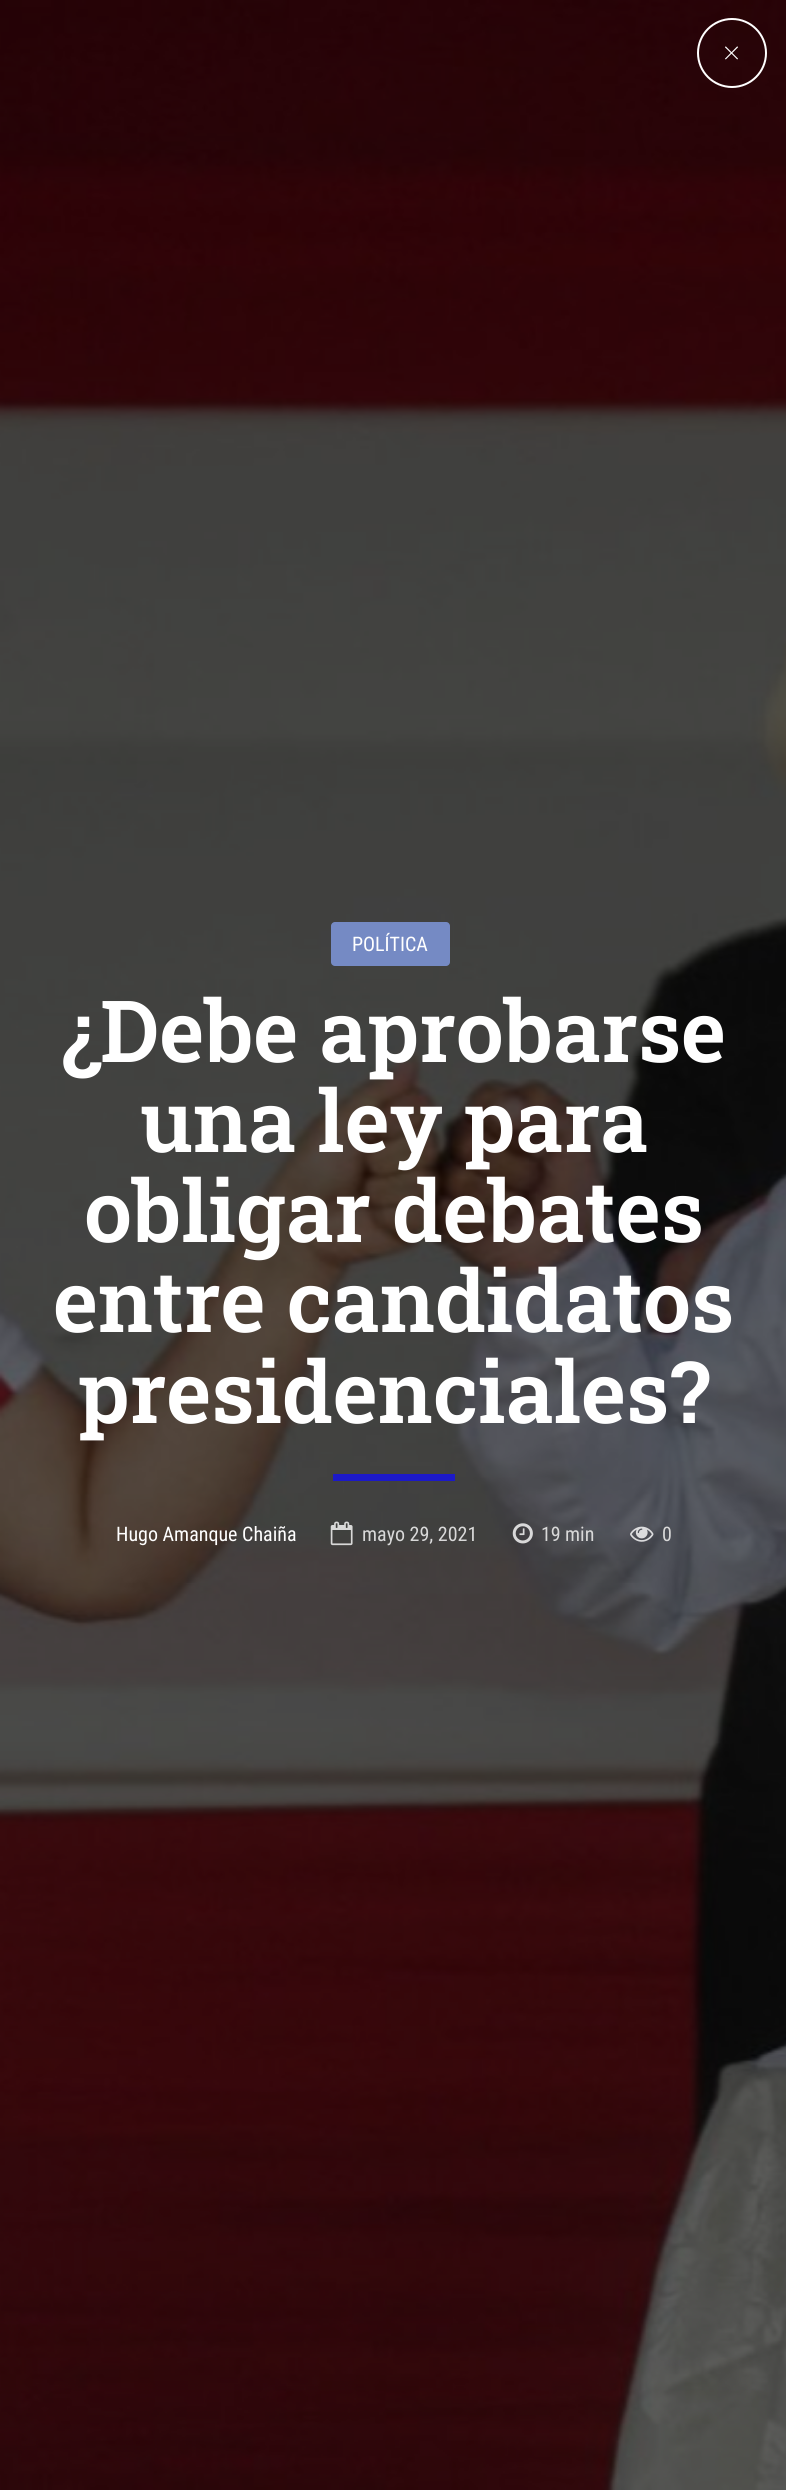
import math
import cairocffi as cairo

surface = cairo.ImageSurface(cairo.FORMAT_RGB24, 786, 2490)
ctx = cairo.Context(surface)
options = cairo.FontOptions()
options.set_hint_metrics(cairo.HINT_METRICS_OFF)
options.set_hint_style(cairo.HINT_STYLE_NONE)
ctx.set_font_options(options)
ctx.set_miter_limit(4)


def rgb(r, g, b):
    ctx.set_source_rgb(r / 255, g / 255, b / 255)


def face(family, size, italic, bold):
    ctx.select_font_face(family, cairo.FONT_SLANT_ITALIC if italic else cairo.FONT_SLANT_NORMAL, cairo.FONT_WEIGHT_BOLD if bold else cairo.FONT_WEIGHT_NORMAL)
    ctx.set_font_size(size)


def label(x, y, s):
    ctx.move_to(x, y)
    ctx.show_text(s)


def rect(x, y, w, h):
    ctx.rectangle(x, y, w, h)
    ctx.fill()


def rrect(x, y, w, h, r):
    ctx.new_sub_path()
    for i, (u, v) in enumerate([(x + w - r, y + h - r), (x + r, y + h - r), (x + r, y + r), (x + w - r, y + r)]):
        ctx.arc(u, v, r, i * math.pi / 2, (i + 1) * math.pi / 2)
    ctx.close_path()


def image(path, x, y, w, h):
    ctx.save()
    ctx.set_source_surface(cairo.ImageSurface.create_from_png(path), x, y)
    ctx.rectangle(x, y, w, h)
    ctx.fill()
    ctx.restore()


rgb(255, 255, 255)
ctx.paint()
image('image0.png', 0, 0, 786, 2490)
ctx.arc(732, 53, 34, 0, 2 * math.pi)
rgb(255, 255, 255)
ctx.stroke()
image('image1.png', 725, 46, 13, 14)
rgb(117, 138, 196)
rrect(331, 922, 119, 44, 4)
ctx.fill()
face('Roboto Condensed', 20, 0, 0)
rgb(255, 255, 255)
label(352, 951, 'POLÍTICA')
face('Roboto Slab SemiBold', 85.75, 0, 0)
label(61, 1062, '¿Debe aprobarse')
label(140, 1152, 'una ley para')
label(84, 1242, 'obligar debates')
label(53, 1332, 'entre candidatos')
label(78, 1423, 'presidenciales?')
rgb(28, 25, 200)
rect(333, 1474, 122, 7)
face('Roboto Condensed', 20, 0, 0)
rgb(255, 255, 255)
label(116, 1541, 'Hugo Amanque Chaiña')
image('image2.png', 330, 1521, 23, 25)
rgb(217, 217, 217)
label(362, 1541, 'mayo 29, 2021')
image('image3.png', 512, 1523, 21, 21)
label(541, 1541, '19')
label(565, 1541, 'min')
image('image4.png', 630, 1526, 24, 16)
label(662, 1541, '0')
surface.write_to_png('render.png')
